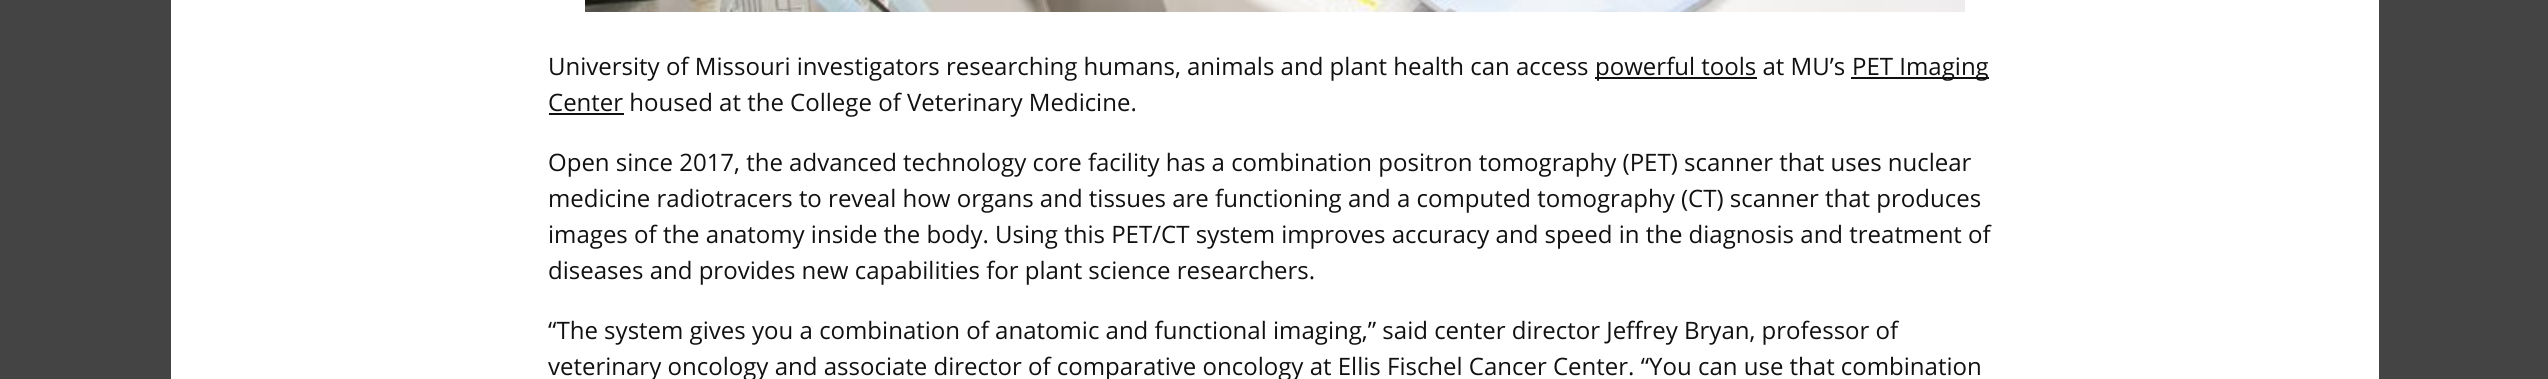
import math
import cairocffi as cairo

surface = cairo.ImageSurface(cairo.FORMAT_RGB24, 2548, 379)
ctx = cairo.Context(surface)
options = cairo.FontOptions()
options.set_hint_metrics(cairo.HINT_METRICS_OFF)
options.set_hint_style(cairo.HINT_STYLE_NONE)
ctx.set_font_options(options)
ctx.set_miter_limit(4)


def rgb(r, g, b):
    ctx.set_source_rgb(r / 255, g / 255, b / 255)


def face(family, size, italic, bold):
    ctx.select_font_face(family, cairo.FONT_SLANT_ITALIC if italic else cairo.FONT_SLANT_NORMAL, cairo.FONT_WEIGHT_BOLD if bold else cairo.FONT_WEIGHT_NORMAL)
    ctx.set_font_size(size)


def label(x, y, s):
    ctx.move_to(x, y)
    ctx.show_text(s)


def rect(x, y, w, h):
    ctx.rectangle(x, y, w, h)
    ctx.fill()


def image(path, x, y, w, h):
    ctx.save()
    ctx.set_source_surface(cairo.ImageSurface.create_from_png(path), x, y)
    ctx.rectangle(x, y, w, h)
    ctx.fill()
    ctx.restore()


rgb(68, 68, 68)
ctx.paint()
rgb(255, 255, 255)
rect(171, 0, 2208, 379)
image('image0.png', 585, 0, 1380, 12)
face('Open Sans', 24, 0, 0)
rgb(17, 17, 17)
label(548, 75, 'University of Missouri investigators researching humans, animals and plant health can access')
rect(1595, 77, 162, 2)
label(1595, 75, 'powerful tools at MU’s')
rect(1851, 77, 138, 2)
label(1852, 75, 'PET Imaging')
rect(549, 113, 75, 2)
label(548, 111, 'Center housed at the College of Veterinary Medicine.')
label(548, 171, 'Open since 2017, the advanced technology core facility has a combination positron tomography (PET) scanner that uses nuclear')
label(548, 207, 'medicine radiotracers to reveal how organs and tissues are functioning and a computed tomography (CT) scanner that produces')
label(548, 243, 'images of the anatomy inside the body. Using this PET/CT system improves accuracy and speed in the diagnosis and treatment of')
label(548, 279, 'diseases and provides new capabilities for plant science researchers.')
label(548, 339, '“The system gives you a combination of anatomic and functional imaging,” said center director Jeffrey Bryan, professor of')
label(548, 375, 'veterinary oncology and associate director of comparative oncology at Ellis Fischel Cancer Center. “You can use that combination')
surface.write_to_png('render.png')
